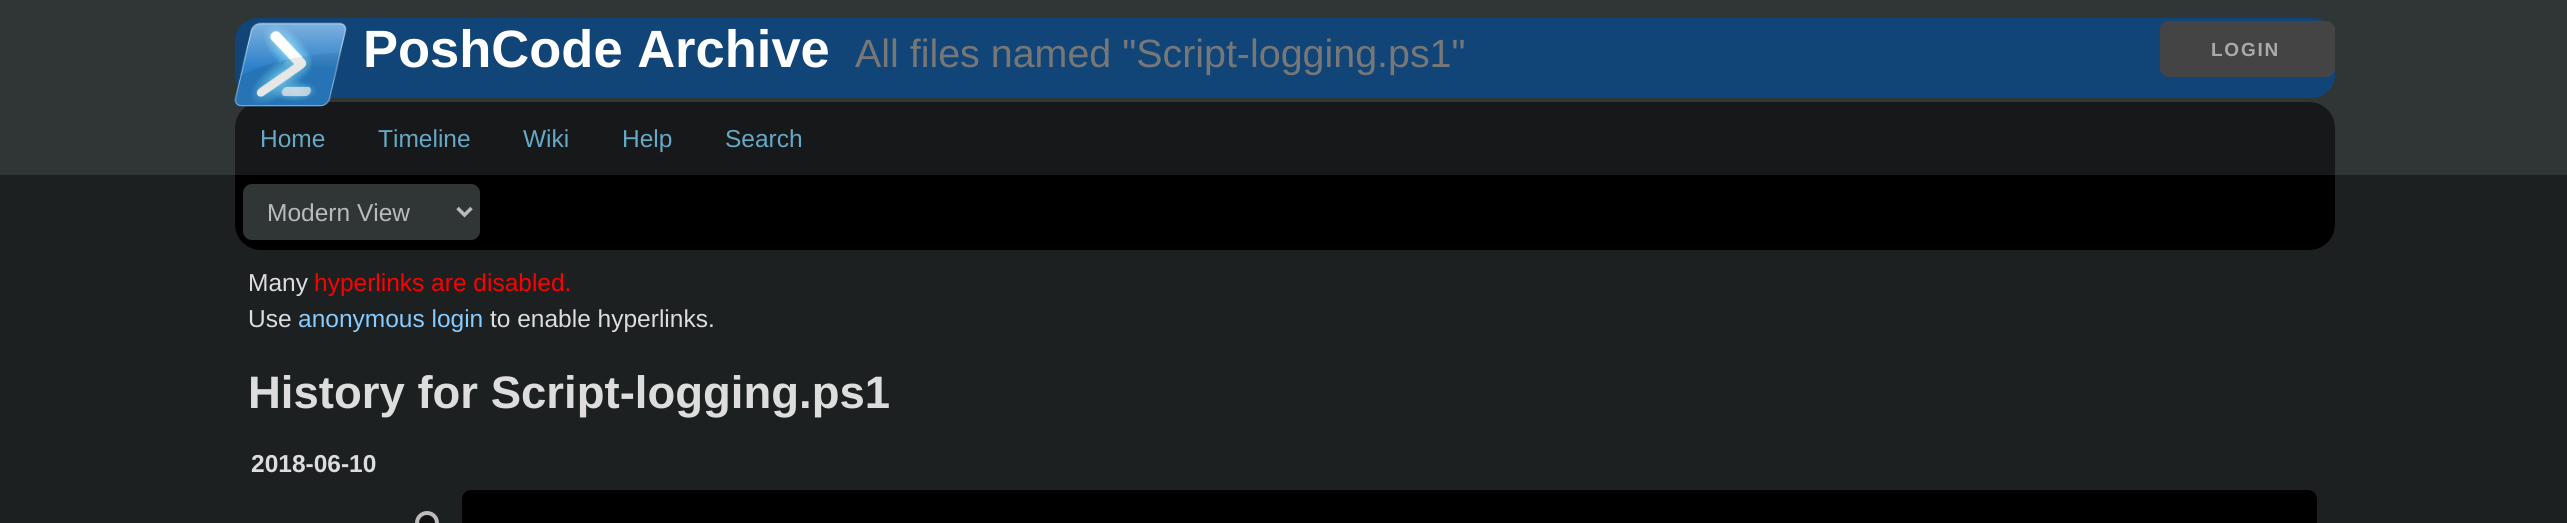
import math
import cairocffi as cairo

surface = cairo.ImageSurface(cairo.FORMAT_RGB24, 2567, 523)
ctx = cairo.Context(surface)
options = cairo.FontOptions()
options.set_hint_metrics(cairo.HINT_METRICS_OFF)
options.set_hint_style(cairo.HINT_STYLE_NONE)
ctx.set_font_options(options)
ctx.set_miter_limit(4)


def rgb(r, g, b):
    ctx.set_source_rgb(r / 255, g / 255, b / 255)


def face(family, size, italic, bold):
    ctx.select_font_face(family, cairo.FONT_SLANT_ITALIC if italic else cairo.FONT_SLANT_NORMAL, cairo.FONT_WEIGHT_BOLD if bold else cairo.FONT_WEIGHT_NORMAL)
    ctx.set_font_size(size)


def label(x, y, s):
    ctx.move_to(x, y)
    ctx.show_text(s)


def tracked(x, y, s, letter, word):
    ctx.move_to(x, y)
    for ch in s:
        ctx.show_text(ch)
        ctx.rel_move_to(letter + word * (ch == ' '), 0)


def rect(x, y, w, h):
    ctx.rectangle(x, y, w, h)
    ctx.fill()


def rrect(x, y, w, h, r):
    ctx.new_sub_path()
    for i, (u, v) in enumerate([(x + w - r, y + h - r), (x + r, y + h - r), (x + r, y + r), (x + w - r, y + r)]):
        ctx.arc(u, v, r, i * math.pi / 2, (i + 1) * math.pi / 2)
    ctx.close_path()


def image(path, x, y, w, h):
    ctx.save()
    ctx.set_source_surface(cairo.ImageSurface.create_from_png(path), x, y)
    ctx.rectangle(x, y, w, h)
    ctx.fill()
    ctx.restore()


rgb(48, 53, 54)
ctx.paint()
rgb(17, 68, 119)
rrect(235, 18, 2100, 80, 23)
ctx.fill()
rgb(22, 24, 25)
ctx.new_path()
ctx.move_to(261, 102)
ctx.line_to(2309, 102)
ctx.curve_to(2323.5, 102, 2335, 113.5, 2335, 128)
ctx.line_to(2335, 175)
ctx.line_to(235, 175)
ctx.line_to(235, 128)
ctx.curve_to(235, 113.5, 246.5, 102, 261, 102)
ctx.close_path()
ctx.fill()
image('image0.png', 234, 22, 113, 85)
face('Liberation Sans', 52.5, 0, 1)
rgb(255, 255, 255)
label(363, 67, 'PoshCode Archive')
face('Liberation Sans', 39.4, 0, 0)
rgb(119, 119, 119)
label(855, 67, 'All files named "Script-logging.ps1"')
rgb(68, 68, 68)
rrect(2160, 21, 175, 56, 9)
ctx.fill()
face('Liberation Sans', 19, 0, 1)
rgb(170, 170, 170)
tracked(2211, 56, 'LOGIN', 1.75, 0)
face('Liberation Sans', 24.5, 0, 0)
rgb(102, 168, 199)
label(260, 147, 'Home')
label(378, 147, 'Timeline')
label(523, 147, 'Wiki')
label(622, 147, 'Help')
label(725, 147, 'Search')
rgb(29, 32, 33)
rect(0, 175, 2567, 348)
rgb(0, 0, 0)
ctx.new_path()
ctx.move_to(235, 175)
ctx.line_to(2335, 175)
ctx.line_to(2335, 224)
ctx.curve_to(2335, 238.5, 2323.5, 250, 2309, 250)
ctx.line_to(261, 250)
ctx.curve_to(246.5, 250, 235, 238.5, 235, 224)
ctx.close_path()
ctx.fill()
rgb(48, 53, 54)
rrect(243, 184, 237, 56, 9)
ctx.fill()
ctx.new_path()
ctx.move_to(457.5, 208)
ctx.line_to(464.5, 215)
ctx.line_to(471.5, 208)
rgb(187, 187, 187)
ctx.set_line_width(3.5)
ctx.stroke()
label(267, 221, 'Modern View')
rgb(221, 221, 221)
label(248, 291, 'Many')
rgb(255, 0, 0)
label(314, 291, 'hyperlinks are disabled.')
rgb(221, 221, 221)
label(248, 327, 'Use')
rgb(136, 204, 255)
label(298, 327, 'anonymous login')
rgb(221, 221, 221)
label(490, 327, 'to enable hyperlinks.')
face('Liberation Sans', 45.5, 0, 1)
label(248, 408, 'History for Script-logging.ps1')
face('Liberation Sans', 24.5, 0, 1)
label(251, 472, '2018-06-10')
rgb(17, 17, 17)
rrect(417, 513, 20, 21, 10)
ctx.fill_preserve()
rgb(187, 187, 187)
ctx.set_line_width(4)
ctx.stroke()
rgb(0, 0, 0)
rrect(462, 490, 1855, 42, 9)
ctx.fill()
surface.write_to_png('render.png')
